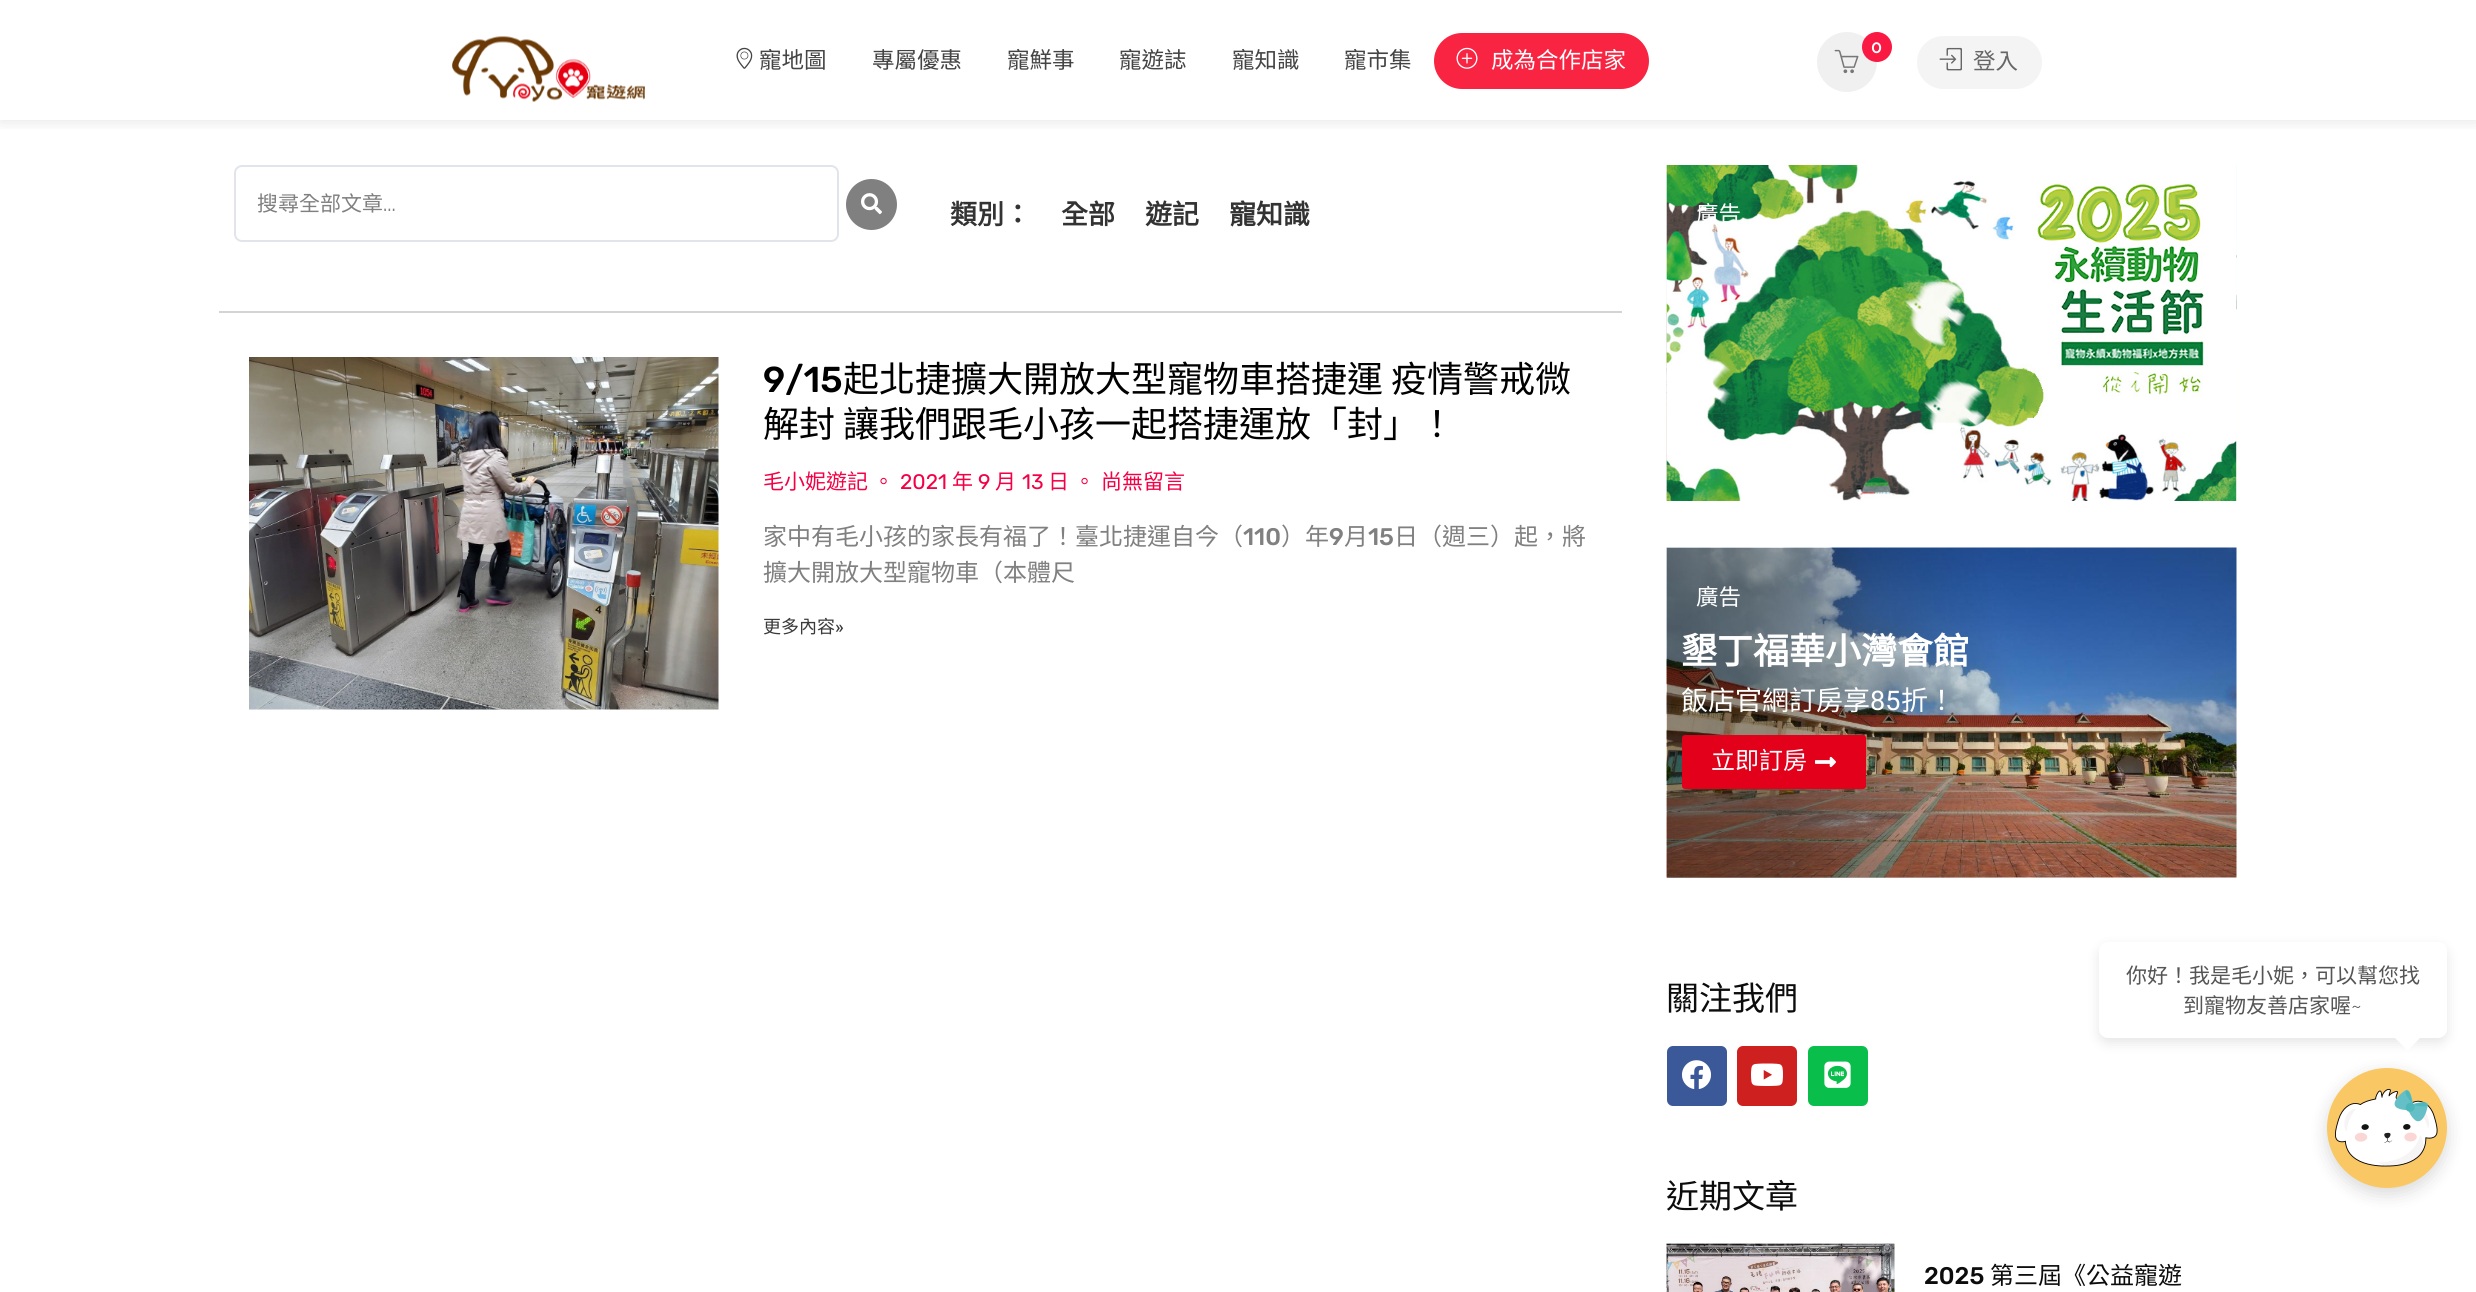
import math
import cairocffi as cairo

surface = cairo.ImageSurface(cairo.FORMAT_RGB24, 2476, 1292)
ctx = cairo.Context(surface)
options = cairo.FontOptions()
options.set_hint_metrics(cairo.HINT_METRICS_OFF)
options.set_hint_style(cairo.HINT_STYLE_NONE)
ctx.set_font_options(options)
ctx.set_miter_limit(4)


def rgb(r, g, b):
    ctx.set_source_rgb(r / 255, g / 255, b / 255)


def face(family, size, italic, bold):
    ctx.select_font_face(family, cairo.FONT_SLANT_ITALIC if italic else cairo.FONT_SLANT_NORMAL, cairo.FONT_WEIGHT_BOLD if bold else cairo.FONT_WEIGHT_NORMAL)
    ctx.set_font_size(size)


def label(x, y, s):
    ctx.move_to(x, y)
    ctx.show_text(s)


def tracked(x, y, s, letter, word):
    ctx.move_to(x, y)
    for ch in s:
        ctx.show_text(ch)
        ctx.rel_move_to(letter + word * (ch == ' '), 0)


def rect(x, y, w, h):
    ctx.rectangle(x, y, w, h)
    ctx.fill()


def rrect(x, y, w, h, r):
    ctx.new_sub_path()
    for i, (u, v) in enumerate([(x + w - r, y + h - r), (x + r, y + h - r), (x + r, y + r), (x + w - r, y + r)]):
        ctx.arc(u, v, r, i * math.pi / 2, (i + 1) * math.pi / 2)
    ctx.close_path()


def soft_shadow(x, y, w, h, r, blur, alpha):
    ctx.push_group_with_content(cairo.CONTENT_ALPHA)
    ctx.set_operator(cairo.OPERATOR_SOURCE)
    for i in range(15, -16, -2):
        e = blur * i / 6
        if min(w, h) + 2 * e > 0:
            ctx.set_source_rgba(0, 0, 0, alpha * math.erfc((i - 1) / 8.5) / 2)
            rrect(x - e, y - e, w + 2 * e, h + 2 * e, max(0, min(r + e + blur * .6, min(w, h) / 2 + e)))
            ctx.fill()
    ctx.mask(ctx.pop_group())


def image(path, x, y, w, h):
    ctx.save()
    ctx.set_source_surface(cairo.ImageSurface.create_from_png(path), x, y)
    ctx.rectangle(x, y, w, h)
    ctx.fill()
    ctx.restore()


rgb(255, 255, 255)
ctx.paint()
ctx.save()
ctx.rectangle(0, 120, 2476, 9)
ctx.clip()
rgb(0, 0, 0)
soft_shadow(0, 0, 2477, 120, 0, 9, 0.12)
ctx.restore()
image('image0.png', 452, 36, 193, 66)
image('image1.png', 736, 47, 17, 22)
face('Noto Sans CJK TC', 22.5, 0, 0)
rgb(68, 68, 68)
label(759, 68, '寵地圖')
label(872, 68, '專屬優惠')
label(1007, 68, '寵鮮事')
label(1119, 68, '寵遊誌')
label(1232, 68, '寵知識')
label(1344, 68, '寵市集')
rgb(249, 36, 66)
rrect(1434, 33, 215, 56, 28)
ctx.fill()
image('image2.png', 1456, 47, 22, 22)
rgb(255, 255, 255)
label(1491, 68, '成為合作店家')
rgb(240, 240, 240)
ctx.new_path()
ctx.arc(1847, 62, 30, 0, 2 * math.pi)
ctx.fill()
image('image3.png', 1834, 49, 25, 25)
rgb(249, 25, 66)
ctx.arc(1877, 47, 15, 0, 2 * math.pi)
ctx.fill()
face('Raleway SemiBold', 18, 0, 0)
rgb(255, 255, 255)
tracked(1871, 53, '0', -1, 0)
rgb(244, 244, 244)
rrect(1917, 36, 125, 53, 26.5)
ctx.fill()
image('image4.png', 1939, 47, 23, 24)
face('Noto Sans CJK TC', 22.5, 0, 0)
rgb(102, 102, 102)
label(1973, 69, '登入')
rrect(235, 166, 603, 75, 7)
rgb(225, 229, 235)
ctx.stroke()
face('Noto Sans CJK TC', 21, 0, 0)
rgb(128, 128, 128)
label(257, 211, '搜尋全部文章')
face('Raleway Medium', 21, 0, 0)
label(383, 211, '...')
ctx.new_path()
ctx.arc(871.5, 204.5, 25.5, 0, 2 * math.pi)
ctx.fill()
image('image5.png', 861, 193, 21, 22)
face('Noto Sans CJK TC', 27, 0, 1)
rgb(51, 51, 51)
label(950, 224, '類別：')
label(1061, 224, '全部')
label(1145, 224, '遊記')
label(1229, 224, '寵知識')
rgb(212, 212, 212)
rect(219, 311, 1403, 2)
image('image6.png', 249, 357, 470, 353)
face('Rubik Medium', 36, 0, 0)
rgb(0, 0, 0)
label(763, 392, '9/15')
face('Noto Sans CJK TC', 36, 0, 0)
label(843, 392, '起北捷擴大開放大型寵物車搭捷運 疫情警戒微')
label(763, 437, '解封 讓我們跟毛小孩一起搭捷運放「封」！')
face('Noto Sans CJK TC', 21, 0, 0)
rgb(244, 0, 69)
label(763, 489, '毛小妮遊記')
label(873, 489, '。')
face('Rubik', 21, 0, 0)
label(900, 489, '2021')
face('Noto Sans CJK TC', 21, 0, 0)
label(952, 489, '年')
face('Rubik', 21, 0, 0)
label(978, 489, '9')
face('Noto Sans CJK TC', 21, 0, 0)
label(995, 489, '月')
face('Rubik', 21, 0, 0)
label(1022, 489, '13')
face('Noto Sans CJK TC', 21, 0, 0)
label(1048, 489, '日')
label(1074, 489, '。')
label(1101, 489, '尚無留言')
face('Noto Sans CJK TC', 24, 0, 0)
rgb(128, 128, 128)
label(763, 545, '家中有毛小孩的家長有福了！臺北捷運自今（')
face('Rubik Medium', 24, 0, 0)
label(1243, 545, '110')
face('Noto Sans CJK TC', 24, 0, 0)
label(1281, 545, '）年')
face('Rubik Medium', 24, 0, 0)
label(1329, 545, '9')
face('Noto Sans CJK TC', 24, 0, 0)
label(1344, 545, '月')
face('Rubik Medium', 24, 0, 0)
label(1368, 545, '15')
face('Noto Sans CJK TC', 24, 0, 0)
label(1394, 545, '日（週三）起，將')
label(763, 581, '擴大開放大型寵物車（本體尺')
face('Noto Sans CJK TC', 18, 0, 0)
rgb(58, 58, 58)
label(763, 633, '更多內容')
face('Roboto Medium', 18, 0, 0)
label(835, 633, '»')
image('image7.png', 1666, 165, 1, 336)
image('image8.png', 1666, 165, 571, 336)
image('image9.png', 2236, 165, 1, 336)
face('Noto Sans CJK TC', 22.5, 0, 0)
rgb(255, 255, 255)
label(1696, 222, '廣告')
image('image10.png', 1666, 547, 571, 331)
gradient = cairo.LinearGradient(1647, 766, 2256, 659)
gradient.add_color_stop_rgba(0.2, 0, 0, 0, 0.35)
gradient.add_color_stop_rgba(0.6, 0, 0, 0, 0)
ctx.set_source(gradient)
rect(1667, 548, 361, 330)
rgb(255, 255, 255)
label(1696, 605, '廣告')
face('Noto Sans CJK TC', 36, 0, 1)
label(1681, 664, '墾丁福華小灣會館')
face('Noto Sans CJK TC', 27, 0, 0)
label(1681, 710, '飯店官網訂房享')
face('Roboto', 27, 0, 0)
label(1870, 710, '85')
face('Noto Sans CJK TC', 27, 0, 0)
label(1901, 710, '折！')
rgb(226, 0, 26)
rrect(1682, 735, 184, 54, 3)
ctx.fill()
face('Noto Sans CJK TC', 24, 0, 0)
rgb(255, 255, 255)
label(1711, 769, '立即訂房')
image('image11.png', 1815, 756, 21, 12)
face('Noto Sans CJK TC', 33, 0, 0)
rgb(12, 12, 12)
label(1666, 1010, '關注我們')
rgb(59, 89, 152)
rrect(1667, 1046, 60, 60, 6)
ctx.fill()
image('image12.png', 1682, 1060, 29, 29)
rgb(205, 32, 31)
rrect(1737, 1046, 60, 60, 6)
ctx.fill()
image('image13.png', 1751, 1063, 32, 23)
rgb(10, 190, 75)
rrect(1808, 1046, 60, 60, 6)
ctx.fill()
image('image14.png', 1824, 1061, 27, 27)
rgb(12, 12, 12)
label(1666, 1208, '近期文章')
image('image15.png', 1666, 1243, 229, 49)
face('Rubik Medium', 24, 0, 0)
label(1924, 1284, '2025')
face('Noto Sans CJK TC', 24, 0, 0)
label(1990, 1284, '第三屆《公益寵遊')
rgb(0, 0, 0)
soft_shadow(2099, 947, 348, 96, 9, 6, 0.1)
rgb(255, 255, 255)
rrect(2099, 942, 348, 96, 9)
ctx.fill()
face('Noto Sans CJK TC', 21, 0, 0)
rgb(85, 85, 85)
label(2126, 983, '你好！我是毛小妮，可以幫您找')
label(2183, 1013, '到寵物友善店家喔')
face('Raleway Thin', 21, 0, 0)
label(2351, 1013, '~')
rgb(255, 255, 255)
ctx.new_path()
ctx.move_to(2407.5, 1025.5)
ctx.line_to(2420, 1038)
ctx.line_to(2407.5, 1050.5)
ctx.line_to(2395, 1038)
ctx.close_path()
ctx.fill()
rgb(0, 0, 0)
soft_shadow(2327, 1074, 120, 120, 60, 9, 0.15)
rgb(249, 200, 101)
ctx.arc(2387, 1128, 60, 0, 2 * math.pi)
ctx.fill()
image('image16.png', 2335, 1088, 103, 79)
surface.write_to_png('render.png')
